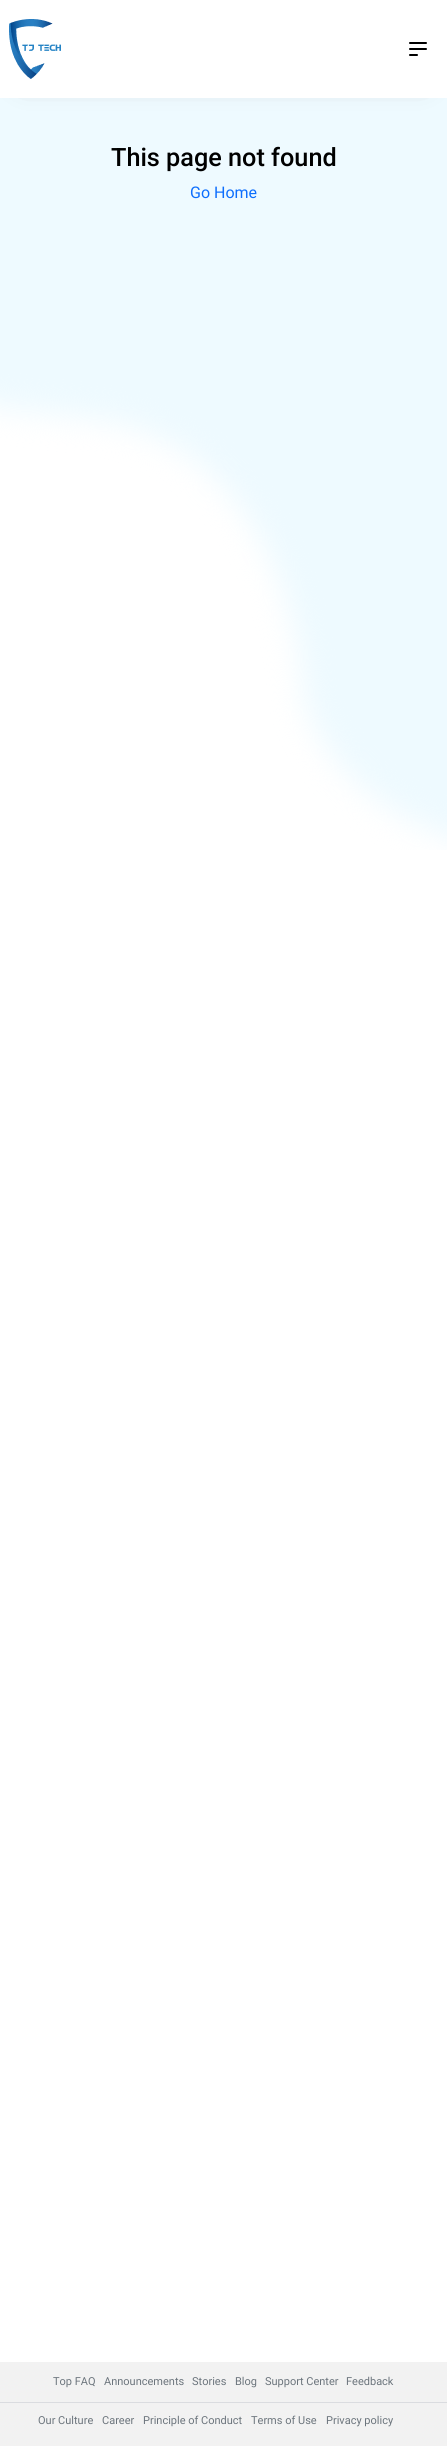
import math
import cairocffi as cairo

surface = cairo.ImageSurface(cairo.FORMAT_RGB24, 447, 2446)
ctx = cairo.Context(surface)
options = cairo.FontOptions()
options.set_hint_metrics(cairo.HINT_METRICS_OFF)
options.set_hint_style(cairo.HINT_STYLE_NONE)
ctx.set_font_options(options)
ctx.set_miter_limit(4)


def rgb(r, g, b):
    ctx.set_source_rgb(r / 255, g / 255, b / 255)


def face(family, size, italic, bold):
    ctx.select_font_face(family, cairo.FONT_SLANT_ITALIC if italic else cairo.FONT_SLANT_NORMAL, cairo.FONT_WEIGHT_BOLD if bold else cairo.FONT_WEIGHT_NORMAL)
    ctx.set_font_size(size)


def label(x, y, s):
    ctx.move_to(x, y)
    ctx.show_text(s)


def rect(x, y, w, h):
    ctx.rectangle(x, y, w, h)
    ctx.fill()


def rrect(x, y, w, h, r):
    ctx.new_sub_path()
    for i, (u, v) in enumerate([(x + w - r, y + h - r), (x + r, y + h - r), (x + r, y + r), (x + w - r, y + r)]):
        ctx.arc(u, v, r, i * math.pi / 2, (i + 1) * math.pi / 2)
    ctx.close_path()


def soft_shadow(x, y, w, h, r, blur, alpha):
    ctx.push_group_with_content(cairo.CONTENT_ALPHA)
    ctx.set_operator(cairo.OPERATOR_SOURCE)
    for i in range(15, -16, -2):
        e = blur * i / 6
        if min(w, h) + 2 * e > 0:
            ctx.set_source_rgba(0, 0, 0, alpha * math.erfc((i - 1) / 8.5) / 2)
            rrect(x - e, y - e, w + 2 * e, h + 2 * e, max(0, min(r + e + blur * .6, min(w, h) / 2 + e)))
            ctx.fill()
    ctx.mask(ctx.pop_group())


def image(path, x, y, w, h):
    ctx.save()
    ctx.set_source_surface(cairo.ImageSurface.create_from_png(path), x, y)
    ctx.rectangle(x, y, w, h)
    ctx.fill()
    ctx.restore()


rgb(255, 255, 255)
ctx.paint()
image('image1.png', 0, 98, 447, 752)
rgb(128, 128, 128)
soft_shadow(24, 25, 399, 50, 0, 14.5, 1)
rgb(255, 255, 255)
rect(0, 0, 447, 98)
image('image0.png', 9, 19, 52, 60)
ctx.new_path()
ctx.move_to(410, 43)
ctx.line_to(426, 43)
ctx.move_to(410, 49)
ctx.line_to(426, 49)
ctx.move_to(410, 55)
ctx.line_to(417, 55)
rgb(0, 0, 0)
ctx.set_line_cap(cairo.LINE_CAP_ROUND)
ctx.set_line_join(cairo.LINE_JOIN_ROUND)
ctx.stroke()
face('Roboto Medium', 25.25, 0, 0)
label(111, 166, 'This page not found')
face('Roboto', 16, 0, 0)
rgb(13, 110, 253)
label(190, 198, 'Go Home')
rgb(242, 242, 242)
rect(0, 2362, 447, 84)
face('Roboto', 11, 0, 0)
rgb(108, 117, 125)
label(53, 2385, 'Top FAQ')
label(104, 2385, 'Announcements')
label(192, 2385, 'Stories')
label(235, 2385, 'Blog')
label(265, 2385, 'Support Center')
label(346, 2385, 'Feedback')
rgb(218, 220, 224)
rect(0, 2402, 447, 1)
rgb(108, 117, 125)
label(38, 2424, 'Our Culture')
label(102, 2424, 'Career')
label(143, 2424, 'Principle of Conduct')
label(251, 2424, 'Terms of Use')
label(326, 2424, 'Privacy policy')
surface.write_to_png('render.png')
